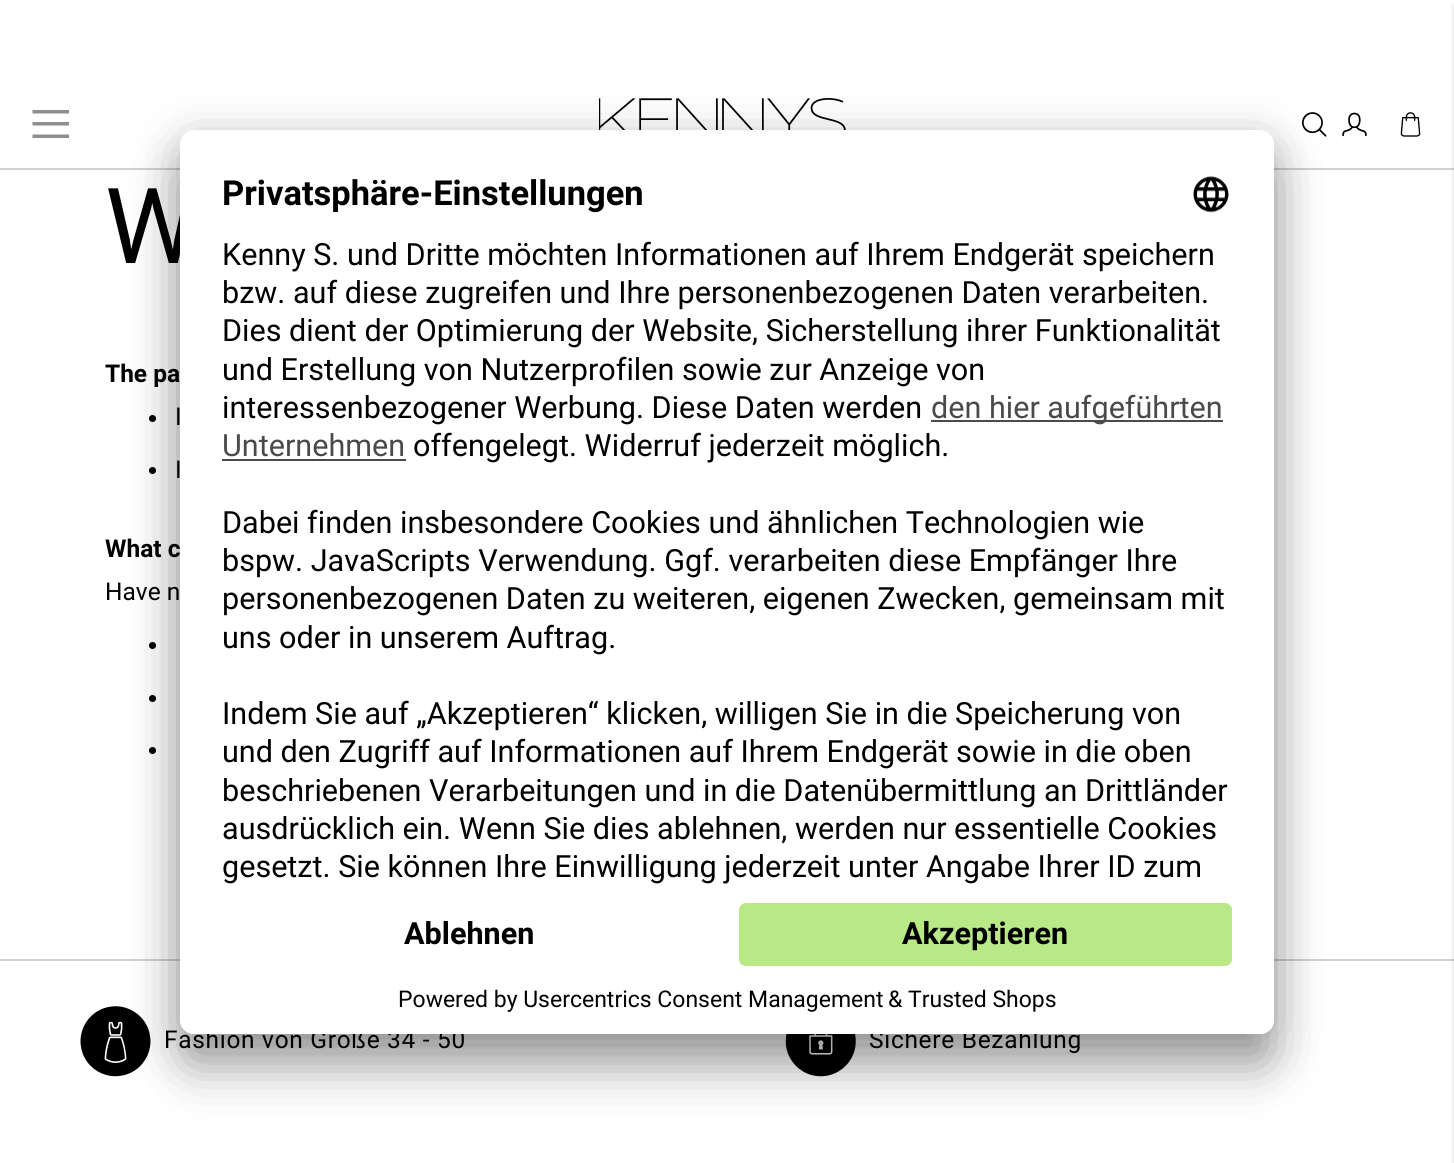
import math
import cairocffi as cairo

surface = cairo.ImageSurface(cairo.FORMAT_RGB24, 1454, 1163)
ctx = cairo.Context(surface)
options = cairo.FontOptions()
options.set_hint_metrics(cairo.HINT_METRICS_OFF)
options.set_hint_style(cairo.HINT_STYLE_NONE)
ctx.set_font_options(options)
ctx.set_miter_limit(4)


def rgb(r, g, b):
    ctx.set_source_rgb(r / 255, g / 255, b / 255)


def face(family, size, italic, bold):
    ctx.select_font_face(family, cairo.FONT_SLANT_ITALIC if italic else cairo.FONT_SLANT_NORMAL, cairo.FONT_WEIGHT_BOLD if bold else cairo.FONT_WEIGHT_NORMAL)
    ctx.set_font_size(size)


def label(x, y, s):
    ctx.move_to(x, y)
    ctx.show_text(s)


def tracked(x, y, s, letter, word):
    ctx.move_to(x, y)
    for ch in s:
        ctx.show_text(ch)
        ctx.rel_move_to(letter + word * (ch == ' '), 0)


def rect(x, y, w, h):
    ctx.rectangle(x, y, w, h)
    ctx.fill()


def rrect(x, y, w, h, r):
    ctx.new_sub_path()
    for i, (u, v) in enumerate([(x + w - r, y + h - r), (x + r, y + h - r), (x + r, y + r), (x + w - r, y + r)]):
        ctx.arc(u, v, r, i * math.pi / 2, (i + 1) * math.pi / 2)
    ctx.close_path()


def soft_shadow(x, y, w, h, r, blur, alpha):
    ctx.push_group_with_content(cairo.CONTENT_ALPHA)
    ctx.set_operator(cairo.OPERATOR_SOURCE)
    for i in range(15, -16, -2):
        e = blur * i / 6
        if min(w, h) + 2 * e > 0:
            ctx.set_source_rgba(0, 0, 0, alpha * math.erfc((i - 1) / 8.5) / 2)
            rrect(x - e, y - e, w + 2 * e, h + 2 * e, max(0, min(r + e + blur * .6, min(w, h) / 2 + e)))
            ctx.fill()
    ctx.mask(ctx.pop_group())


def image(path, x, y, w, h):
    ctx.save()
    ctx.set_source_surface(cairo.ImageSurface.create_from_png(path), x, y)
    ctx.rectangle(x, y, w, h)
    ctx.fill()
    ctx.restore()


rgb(255, 255, 255)
ctx.paint()
image('image1.png', 1302, 112, 25, 25)
image('image2.png', 1342, 112, 25, 25)
rgb(209, 209, 209)
rect(0, 168, 1454, 2)
image('image4.png', 599, 98, 247, 32)
rgb(0, 0, 0)
ctx.arc(152.5, 418.5, 3.5, 0, 2 * math.pi)
ctx.fill()
ctx.arc(152.5, 470.5, 3.5, 0, 2 * math.pi)
ctx.fill()
ctx.arc(152.5, 645.5, 3.5, 0, 2 * math.pi)
ctx.fill()
ctx.arc(152.5, 698.5, 3.5, 0, 2 * math.pi)
ctx.fill()
ctx.arc(152.5, 750.5, 3.5, 0, 2 * math.pi)
ctx.fill()
rgb(209, 209, 209)
rect(0, 959, 1454, 2)
image('image5.png', 80, 1006, 71, 71)
image('image6.png', 785, 1034, 71, 43)
rgb(0, 0, 0)
soft_shadow(180, 165, 1094, 904, 14, 24.5, 0.3)
soft_shadow(180, 138, 1094, 905, 14, 23, 0.22)
face('Roboto', 105, 0, 0)
rgb(0, 0, 0)
label(105, 263, 'W')
face('Roboto', 24.5, 0, 0)
tracked(164, 1048, 'Fashion von Größe 34 - 50', 0.7, 0)
tracked(869, 1048, 'Sichere Bezahlung', 0.7, 0)
rgb(255, 255, 255)
rrect(180, 130, 1094, 904, 14)
ctx.fill()
face('Roboto', 34.5, 0, 1)
rgb(0, 0, 0)
label(222, 205, 'Privatsphäre-Einstellungen')
image('image0.png', 1193, 176, 36, 37)
face('Roboto', 30.6, 0, 0)
label(222, 265, 'Kenny S. und Dritte möchten Informationen auf Ihrem Endgerät speichern')
label(222, 303, 'bzw. auf diese zugreifen und Ihre personenbezogenen Daten verarbeiten.')
label(222, 341, 'Dies dient der Optimierung der Website, Sicherstellung ihrer Funktionalität')
label(222, 380, 'und Erstellung von Nutzerprofilen sowie zur Anzeige von')
label(222, 418, 'interessenbezogener Werbung. Diese Daten werden')
rgb(74, 74, 74)
rect(931, 420, 292, 2)
label(931, 418, 'den hier aufgeführten')
label(222, 456, 'Unternehmen')
rect(222, 459, 184, 2)
rgb(0, 0, 0)
label(413, 456, 'offengelegt. Widerruf jederzeit möglich.')
label(222, 533, 'Dabei finden insbesondere Cookies und ähnlichen Technologien wie')
label(222, 571, 'bspw. JavaScripts Verwendung. Ggf. verarbeiten diese Empfänger Ihre')
label(222, 609, 'personenbezogenen Daten zu weiteren, eigenen Zwecken, gemeinsam mit')
label(222, 648, 'uns oder in unserem Auftrag.')
label(222, 724, 'Indem Sie auf „Akzeptieren“ klicken, willigen Sie in die Speicherung von')
label(222, 762, 'und den Zugriff auf Informationen auf Ihrem Endgerät sowie in die oben')
label(222, 801, 'beschriebenen Verarbeitungen und in die Datenübermittlung an Drittländer')
label(222, 839, 'ausdrücklich ein. Wenn Sie dies ablehnen, werden nur essentielle Cookies')
label(222, 877, 'gesetzt. Sie können Ihre Einwilligung jederzeit unter Angabe Ihrer ID zum')
rgb(255, 255, 255)
ctx.new_path()
ctx.move_to(180, 889)
ctx.line_to(1274, 889)
ctx.line_to(1274, 1020)
ctx.curve_to(1274, 1027.5, 1267.5, 1034, 1260, 1034)
ctx.line_to(194, 1034)
ctx.curve_to(186.5, 1034, 180, 1027.5, 180, 1020)
ctx.close_path()
ctx.fill()
face('Roboto', 30.6, 0, 1)
rgb(0, 0, 0)
label(404, 944, 'Ablehnen')
rgb(184, 233, 134)
rrect(739, 903, 493, 63, 7)
ctx.fill()
rgb(0, 0, 0)
label(902, 944, 'Akzeptieren')
face('Roboto', 23, 0, 0)
label(398, 1007, 'Powered by Usercentrics Consent Management')
label(888, 1007, '& Trusted Shops')
image('image3.png', 1400, 112, 21, 25)
rgb(0, 0, 0)
soft_shadow(1454, 5, 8, 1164, 0, 2.5, 0.15)
rgb(143, 143, 143)
ctx.new_path()
ctx.move_to(32.5, 110)
ctx.line_to(32.5, 113.5)
ctx.line_to(69, 113.5)
ctx.line_to(69, 110)
ctx.close_path()
ctx.move_to(32.5, 125.5)
ctx.line_to(69, 125.5)
ctx.line_to(69, 122)
ctx.line_to(32.5, 122)
ctx.close_path()
ctx.move_to(32.5, 138)
ctx.line_to(69, 138)
ctx.line_to(69, 134.5)
ctx.line_to(32.5, 134.5)
ctx.close_path()
ctx.fill()
face('Roboto', 24.5, 0, 1)
rgb(0, 0, 0)
label(105, 382, 'The pa')
face('Roboto', 24.5, 0, 0)
label(175, 425, 'I')
label(175, 478, 'I')
face('Roboto', 24.5, 0, 1)
label(105, 557, 'What c')
face('Roboto', 24.5, 0, 0)
label(105, 600, 'Have n')
surface.write_to_png('render.png')
